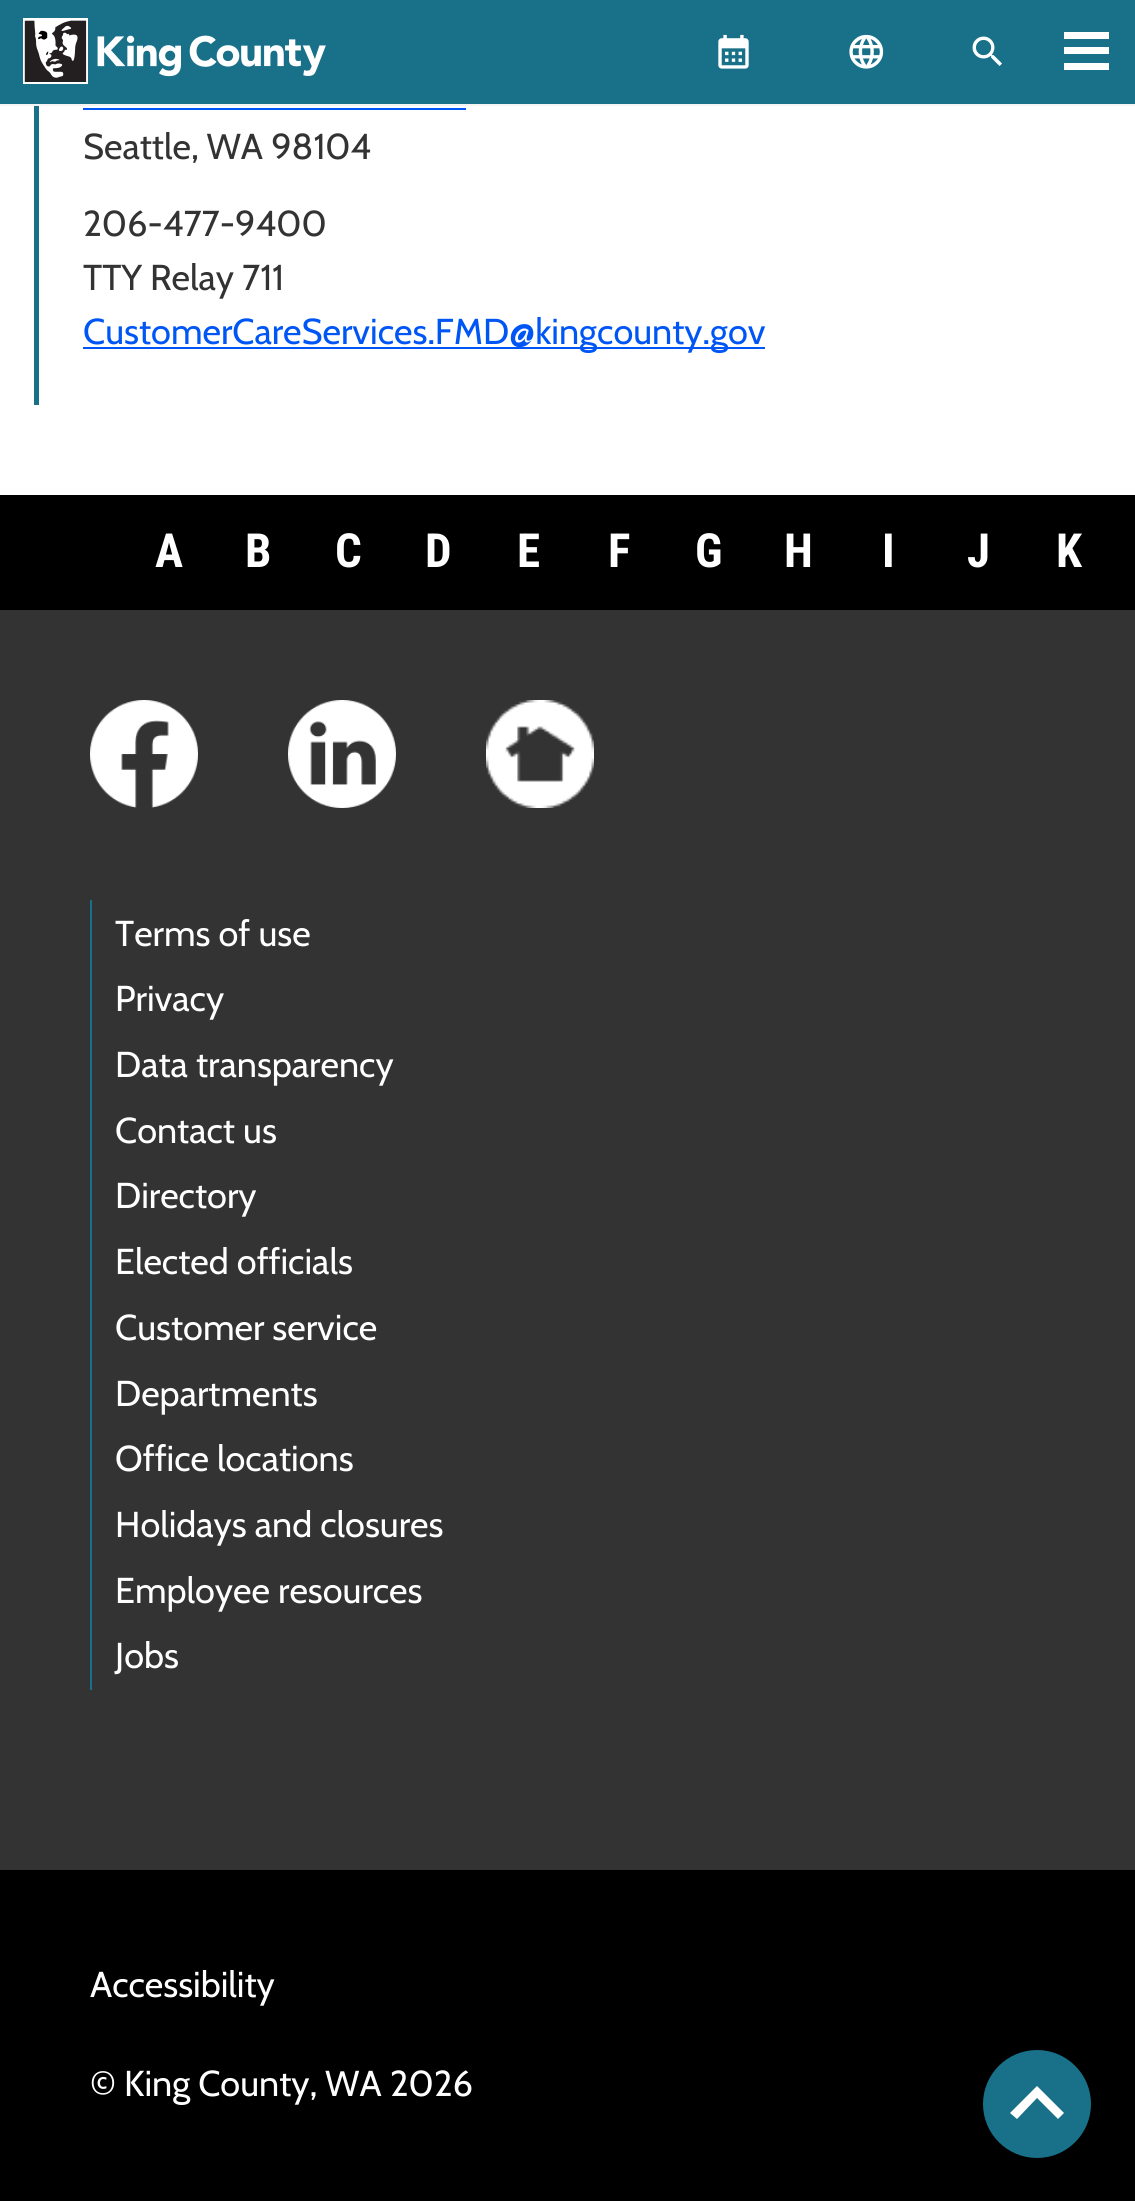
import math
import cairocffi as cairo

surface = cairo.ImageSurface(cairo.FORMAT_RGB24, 1135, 2201)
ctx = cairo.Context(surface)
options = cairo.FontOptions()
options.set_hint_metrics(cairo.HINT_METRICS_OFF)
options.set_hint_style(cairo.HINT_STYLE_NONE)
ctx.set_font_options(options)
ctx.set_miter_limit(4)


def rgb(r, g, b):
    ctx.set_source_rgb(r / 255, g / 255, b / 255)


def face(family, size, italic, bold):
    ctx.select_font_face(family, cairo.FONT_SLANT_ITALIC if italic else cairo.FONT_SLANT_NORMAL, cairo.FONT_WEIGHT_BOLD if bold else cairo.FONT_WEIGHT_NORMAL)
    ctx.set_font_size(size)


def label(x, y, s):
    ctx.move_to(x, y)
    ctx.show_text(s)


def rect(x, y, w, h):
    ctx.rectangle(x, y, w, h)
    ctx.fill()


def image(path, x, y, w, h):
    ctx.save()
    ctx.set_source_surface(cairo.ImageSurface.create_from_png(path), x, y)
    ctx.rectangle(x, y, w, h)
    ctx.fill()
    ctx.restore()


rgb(255, 255, 255)
ctx.paint()
rgb(24, 112, 137)
rect(0, 0, 1135, 104)
rgb(244, 244, 244)
rect(0, 104, 1135, 2)
image('image0.png', 23, 18, 303, 66)
image('image1.png', 718, 34, 31, 35)
image('image2.png', 849, 34, 35, 35)
image('image3.png', 972, 36, 30, 30)
rgb(255, 255, 255)
rect(1064, 32, 45, 7)
rect(1064, 47, 45, 7)
rect(1064, 63, 45, 7)
rgb(24, 112, 137)
rect(34, 106, 5, 299)
rgb(0, 86, 245)
rect(83, 108, 383, 2)
face('Cabin', 36, 0, 0)
rgb(51, 51, 51)
label(83, 159, 'Seattle, WA 98104')
label(83, 236, '206-477-9400')
label(83, 290, 'TTY Relay 711')
rgb(0, 86, 245)
rect(83, 347, 682, 2)
label(83, 344, 'CustomerCareServices.FMD@kingcounty.gov')
rgb(0, 0, 0)
rect(0, 495, 1135, 115)
face('Roboto Condensed', 47, 0, 1)
rgb(255, 255, 255)
label(155, 567, 'A')
label(245, 567, 'B')
label(335, 567, 'C')
label(425, 567, 'D')
label(517, 567, 'E')
label(608, 567, 'F')
label(695, 567, 'G')
label(784, 567, 'H')
label(882, 567, 'I')
label(967, 567, 'J')
label(1056, 567, 'K')
rgb(51, 51, 51)
rect(0, 610, 1135, 1260)
image('image4.png', 90, 700, 108, 108)
image('image5.png', 288, 700, 108, 108)
image('image6.png', 486, 700, 108, 108)
rgb(24, 112, 137)
rect(90, 900, 2, 790)
face('Cabin', 36, 0, 0)
rgb(255, 255, 255)
label(115, 946, 'Terms of use')
label(115, 1011, 'Privacy')
label(115, 1077, 'Data transparency')
label(115, 1143, 'Contact us')
label(115, 1208, 'Directory')
label(115, 1274, 'Elected officials')
label(115, 1340, 'Customer service')
label(115, 1406, 'Departments')
label(115, 1471, 'Office locations')
label(115, 1537, 'Holidays and closures')
label(115, 1603, 'Employee resources')
label(115, 1668, 'Jobs')
rgb(0, 0, 0)
rect(0, 1870, 1135, 331)
rgb(255, 255, 255)
label(90, 1997, 'Accessibility')
label(90, 2096, '© King County, WA 2026')
rgb(24, 112, 137)
ctx.new_path()
ctx.arc(1037, 2104, 54, 0, 2 * math.pi)
ctx.fill()
rgb(255, 255, 255)
ctx.new_path()
ctx.move_to(1037, 2086)
ctx.line_to(1064, 2113)
ctx.line_to(1058, 2119)
ctx.line_to(1037, 2098)
ctx.line_to(1017, 2119)
ctx.line_to(1010, 2113)
ctx.close_path()
ctx.fill()
surface.write_to_png('render.png')
